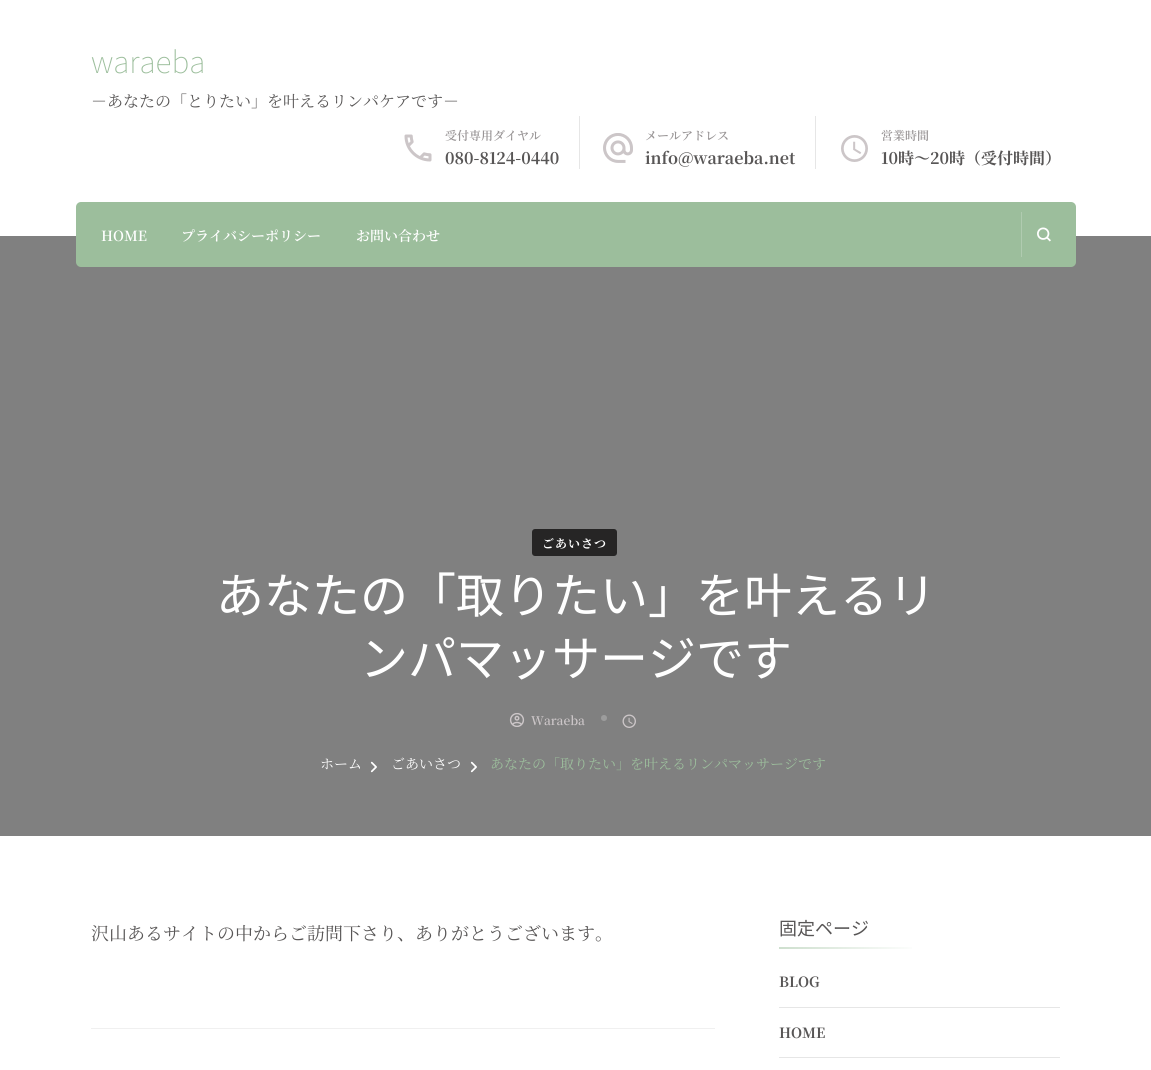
import math
import cairocffi as cairo

surface = cairo.ImageSurface(cairo.FORMAT_RGB24, 1151, 1070)
ctx = cairo.Context(surface)
options = cairo.FontOptions()
options.set_hint_metrics(cairo.HINT_METRICS_OFF)
options.set_hint_style(cairo.HINT_STYLE_NONE)
ctx.set_font_options(options)
ctx.set_miter_limit(4)


def rgb(r, g, b):
    ctx.set_source_rgb(r / 255, g / 255, b / 255)


def face(family, size, italic, bold):
    ctx.select_font_face(family, cairo.FONT_SLANT_ITALIC if italic else cairo.FONT_SLANT_NORMAL, cairo.FONT_WEIGHT_BOLD if bold else cairo.FONT_WEIGHT_NORMAL)
    ctx.set_font_size(size)


def label(x, y, s):
    ctx.move_to(x, y)
    ctx.show_text(s)


def tracked(x, y, s, letter, word):
    ctx.move_to(x, y)
    for ch in s:
        ctx.show_text(ch)
        ctx.rel_move_to(letter + word * (ch == ' '), 0)


def rect(x, y, w, h):
    ctx.rectangle(x, y, w, h)
    ctx.fill()


def rrect(x, y, w, h, r):
    ctx.new_sub_path()
    for i, (u, v) in enumerate([(x + w - r, y + h - r), (x + r, y + h - r), (x + r, y + r), (x + w - r, y + r)]):
        ctx.arc(u, v, r, i * math.pi / 2, (i + 1) * math.pi / 2)
    ctx.close_path()


def image(path, x, y, w, h):
    ctx.save()
    ctx.set_source_surface(cairo.ImageSurface.create_from_png(path), x, y)
    ctx.rectangle(x, y, w, h)
    ctx.fill()
    ctx.restore()


rgb(255, 255, 255)
ctx.paint()
face('Noto Sans JP Thin', 30, 0, 0)
rgb(156, 190, 156)
label(91, 73, 'waraeba')
face('Noto Serif JP', 16, 0, 0)
rgb(88, 86, 86)
label(91, 107, '－あなたの「とりたい」を叶えるリンパケアです－')
image('image0.png', 404, 134, 28, 28)
face('Noto Serif JP SemiBold', 12, 0, 0)
rgb(153, 149, 150)
label(445, 140, '受付専用ダイヤル')
face('Noto Serif JP', 16, 0, 1)
rgb(88, 86, 86)
label(445, 164, '080-8124-0440')
rgb(230, 230, 230)
rect(579, 116, 1, 53)
image('image1.png', 603, 133, 30, 30)
face('Noto Serif JP SemiBold', 12, 0, 0)
rgb(153, 149, 150)
label(645, 140, 'メールアドレス')
face('Noto Serif JP', 16, 0, 1)
rgb(88, 86, 86)
label(645, 164, 'info@waraeba.net')
rgb(230, 230, 230)
rect(815, 116, 1, 53)
image('image2.png', 841, 135, 27, 27)
face('Noto Serif JP SemiBold', 12, 0, 0)
rgb(153, 149, 150)
label(881, 140, '営業時間')
face('Noto Serif JP', 16, 0, 1)
rgb(88, 86, 86)
label(881, 164, '10時～20時（受付時間）')
rgb(128, 128, 128)
rect(0, 236, 1151, 600)
rgb(156, 190, 156)
rrect(76, 202, 1000, 65, 5)
ctx.fill()
face('Noto Serif JP SemiBold', 14, 0, 0)
rgb(255, 255, 255)
label(101, 241, 'HOME')
label(181, 241, 'プライバシーポリシー')
label(356, 241, 'お問い合わせ')
rgb(176, 203, 176)
rect(1021, 212, 1, 45)
image('image3.png', 1037, 227, 14, 15)
rgb(38, 37, 37)
rrect(532, 529, 85, 27, 3)
ctx.fill()
face('Noto Serif JP', 12, 0, 1)
rgb(255, 255, 255)
tracked(542, 548, 'ごあいさつ', 1, 0)
face('Noto Sans JP', 48, 0, 0)
label(216, 613, 'あなたの「取りたい」を叶えるリ')
label(360, 676, 'ンパマッサージです')
image('image4.png', 509, 713, 16, 14)
face('Noto Serif JP SemiBold', 12, 0, 0)
rgb(204, 198, 200)
label(531, 725, 'Waraeba')
rgb(156, 156, 156)
ctx.new_path()
ctx.arc(604, 718, 3, 0, 2 * math.pi)
ctx.fill()
image('image5.png', 622, 714, 14, 14)
face('Noto Serif JP', 14, 0, 0)
rgb(255, 255, 255)
label(320, 769, 'ホーム')
image('image6.png', 370, 761, 7, 12)
label(391, 769, 'ごあいさつ')
image('image6.png', 470, 761, 7, 12)
rgb(156, 190, 156)
label(490, 769, 'あなたの「取りたい」を叶えるリンパマッサージです')
face('Noto Serif JP', 18, 0, 0)
rgb(88, 86, 86)
label(91, 940, '沢山あるサイトの中からご訪問下さり、ありがとうございます。')
rgb(240, 240, 240)
rect(91, 1028, 624, 1)
face('Noto Sans JP', 18, 0, 0)
rgb(88, 86, 86)
label(779, 935, '固定ページ')
gradient = cairo.LinearGradient(779, 948, 1060, 948)
gradient.add_color_stop_rgba(0, 0.808, 0.875, 0.808, 1)
gradient.add_color_stop_rgba(0.5, 1, 1, 1, 1)
ctx.set_source(gradient)
rect(779, 947, 133, 2)
rgb(230, 230, 230)
rect(779, 1007, 281, 1)
face('Noto Serif JP', 14, 0, 1)
rgb(88, 86, 86)
label(779, 987, 'BLOG')
rgb(230, 230, 230)
rect(779, 1057, 281, 1)
rgb(88, 86, 86)
label(779, 1038, 'HOME')
surface.write_to_png('render.png')
